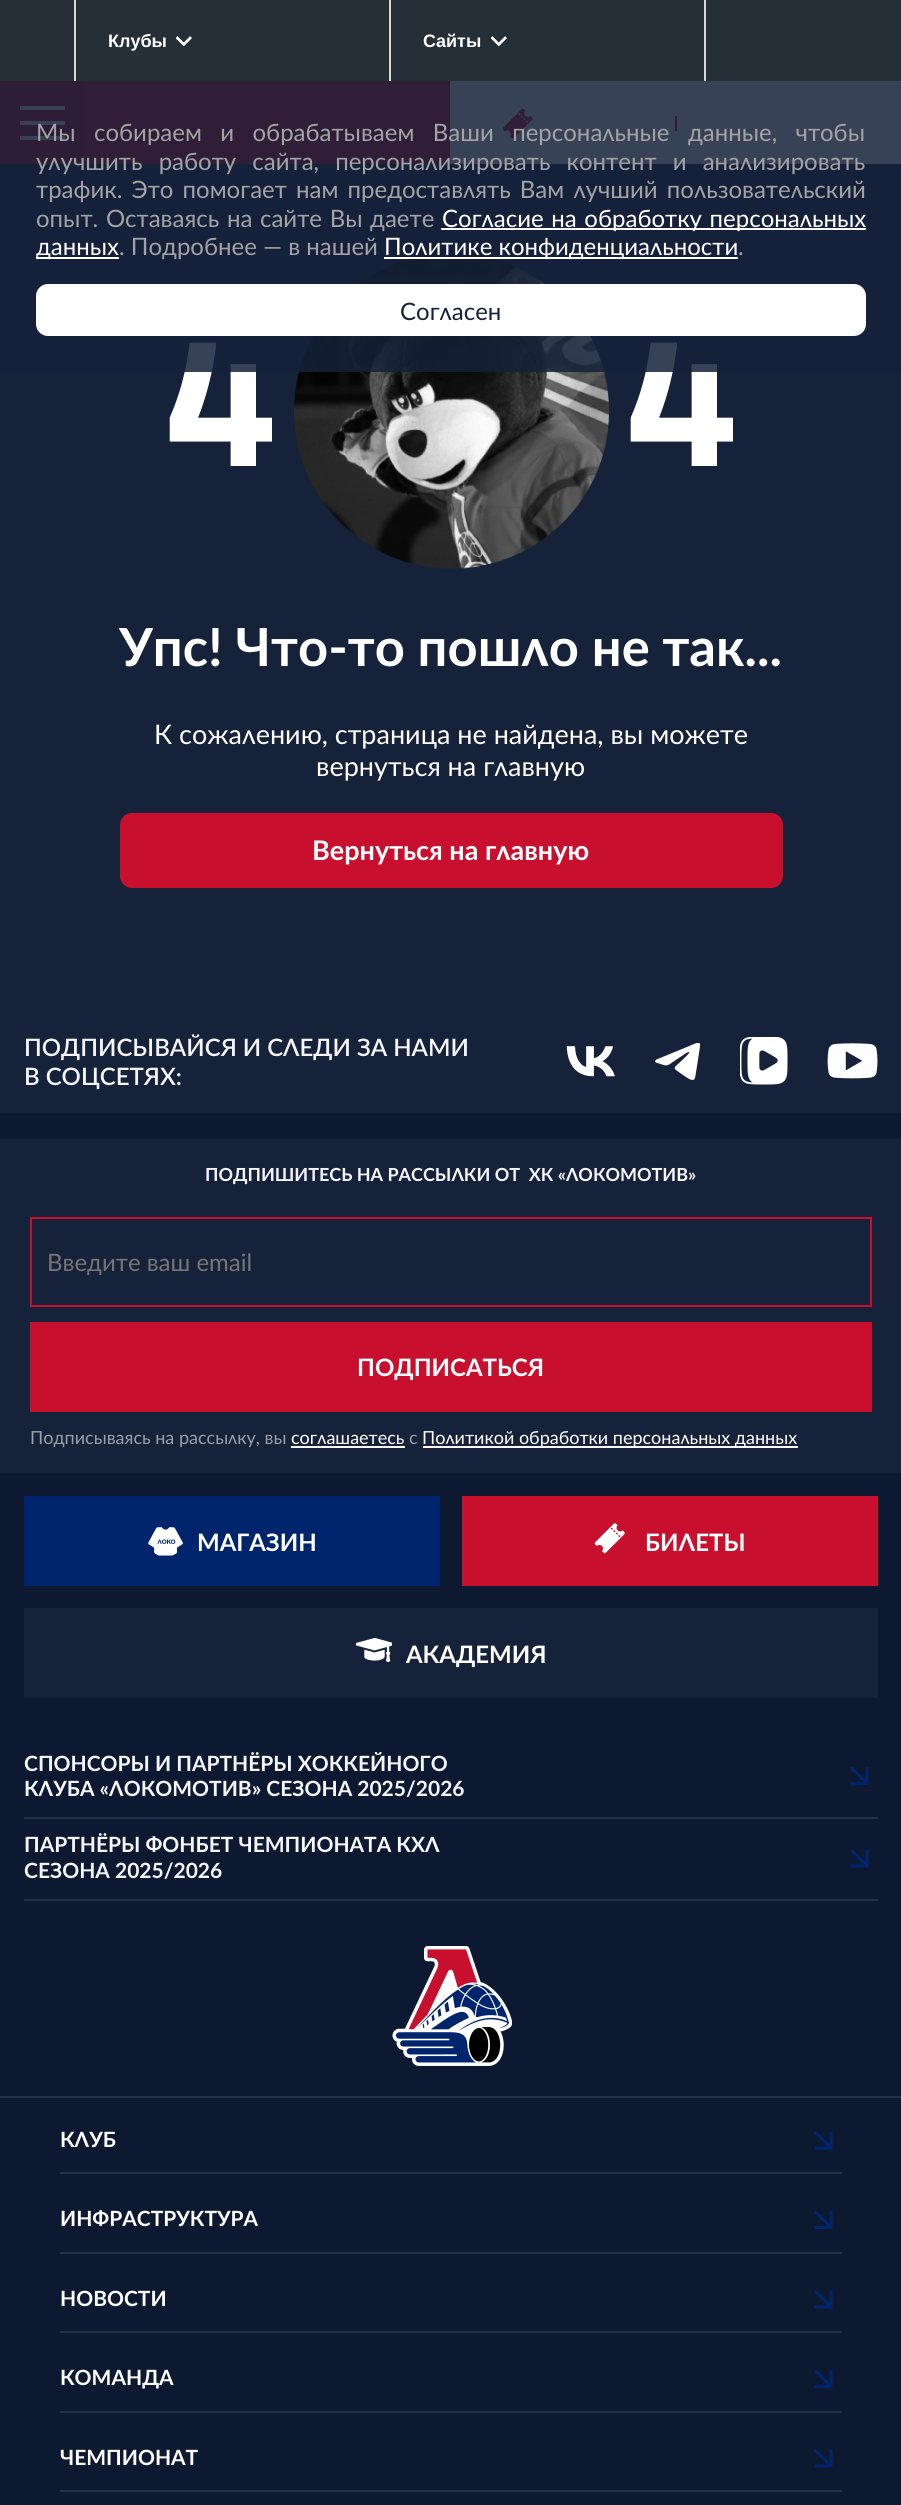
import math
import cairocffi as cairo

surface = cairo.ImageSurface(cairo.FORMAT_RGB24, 901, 2505)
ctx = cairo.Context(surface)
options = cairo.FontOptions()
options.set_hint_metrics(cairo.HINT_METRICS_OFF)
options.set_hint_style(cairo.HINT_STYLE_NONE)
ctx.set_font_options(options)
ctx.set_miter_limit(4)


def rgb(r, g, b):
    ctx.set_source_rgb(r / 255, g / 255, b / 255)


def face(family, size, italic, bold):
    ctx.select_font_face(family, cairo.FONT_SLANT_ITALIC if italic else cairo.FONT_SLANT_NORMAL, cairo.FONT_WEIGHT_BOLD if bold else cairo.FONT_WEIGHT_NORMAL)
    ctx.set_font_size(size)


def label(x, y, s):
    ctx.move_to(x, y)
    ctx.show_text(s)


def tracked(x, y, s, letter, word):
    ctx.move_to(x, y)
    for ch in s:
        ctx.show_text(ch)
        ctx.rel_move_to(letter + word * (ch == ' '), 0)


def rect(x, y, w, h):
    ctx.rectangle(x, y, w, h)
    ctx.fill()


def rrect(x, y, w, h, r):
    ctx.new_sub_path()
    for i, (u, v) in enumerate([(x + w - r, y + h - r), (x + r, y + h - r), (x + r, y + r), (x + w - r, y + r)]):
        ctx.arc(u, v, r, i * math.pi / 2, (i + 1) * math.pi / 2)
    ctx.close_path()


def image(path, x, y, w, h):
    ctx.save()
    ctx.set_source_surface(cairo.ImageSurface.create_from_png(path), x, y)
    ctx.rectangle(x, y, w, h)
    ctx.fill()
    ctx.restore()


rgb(22, 34, 58)
ctx.paint()
rgb(36, 47, 55)
rect(0, 0, 901, 81)
rgb(216, 216, 216)
rect(74, 0, 2, 81)
rect(389, 0, 2, 81)
face('Liberation Sans', 18, 0, 1)
rgb(255, 255, 255)
label(108, 47, 'Клубы')
image('image0.png', 176, 36, 16, 11)
rgb(216, 216, 216)
rect(704, 0, 2, 81)
rgb(255, 255, 255)
label(423, 47, 'Сайты')
image('image0.png', 491, 36, 16, 11)
rgb(200, 16, 46)
rect(83, 81, 367, 83)
rgb(180, 9, 37)
rect(0, 81, 83, 83)
rgb(251, 243, 244)
rect(20, 106, 45, 4)
rect(20, 121, 45, 4)
rect(20, 136, 45, 4)
rgb(255, 255, 255)
rect(450, 81, 451, 83)
rgb(200, 16, 46)
rect(675, 116, 2, 15)
image('image1.png', 503, 108, 30, 30)
face('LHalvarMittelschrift', 188, 0, 1)
rgb(255, 255, 255)
label(162, 466, '4')
image('image2.png', 294, 253, 315, 316)
label(623, 466, '4')
ctx.set_source_rgba(0.086, 0.133, 0.227, 0.85)
rect(0, 81, 901, 291)
face('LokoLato', 24, 0, 0)
rgb(163, 163, 163)
tracked(36, 141, 'Мы собираем и обрабатываем Ваши персональные данные, чтобы', 0, 12.25)
tracked(36, 170, 'улучшить работу сайта, персонализировать контент и анализировать', 0, 10)
tracked(36, 198, 'трафик. Это помогает нам предоставлять Вам лучший пользовательский', 0, 3)
tracked(36, 227, 'опыт. Оставаясь на сайте Вы даете', 0, 1.5)
rgb(255, 255, 255)
rect(441, 228, 425, 2)
tracked(442, 227, 'Согласие на обработку персональных', 0, 1.5)
rect(36, 257, 83, 2)
label(36, 255, 'данных')
rgb(163, 163, 163)
label(119, 255, '. Подробнее — в нашей')
rgb(255, 255, 255)
rect(384, 257, 354, 2)
label(384, 255, 'Политике конфиденциальности')
rgb(163, 163, 163)
label(738, 255, '.')
rgb(255, 255, 255)
rrect(36, 284, 830, 52, 12)
ctx.fill()
rgb(22, 34, 58)
label(400, 320, 'Согласен')
face('LokoLato', 52.5, 0, 1)
rgb(255, 255, 255)
label(119, 666, 'Упс! Что-то пошло не так...')
face('LokoLato', 27, 0, 0)
label(154, 744, 'К сожалению, страница не найдена, вы можете')
label(316, 776, 'вернуться на главную')
rgb(200, 16, 46)
rrect(120, 813, 663, 75, 12)
ctx.fill()
face('LokoLato', 27, 0, 1)
rgb(255, 255, 255)
label(312, 860, 'Вернуться на главную')
rgb(12, 25, 49)
rect(0, 1113, 901, 1392)
face('LokoLato SemiBold', 24, 0, 0)
rgb(244, 246, 250)
label(24, 1056, 'ПОДПИСЫВАЙСЯ И СЛЕДИ ЗА НАМИ')
label(24, 1085, 'В СОЦСЕТЯХ:')
image('image3.png', 566, 1046, 49, 31)
image('image4.png', 655, 1043, 46, 37)
image('image5.png', 740, 1037, 48, 48)
image('image6.png', 827, 1043, 51, 36)
rgb(22, 34, 58)
rect(0, 1139, 901, 334)
face('LokoLato', 18, 0, 1)
rgb(244, 246, 250)
label(205, 1181, 'ПОДПИШИТЕСЬ НА РАССЫЛКИ ОТ  ХК «ЛОКОМОТИВ»')
ctx.rectangle(31, 1218, 840, 88)
rgb(200, 16, 46)
ctx.stroke()
ctx.save()
ctx.rectangle(47, 1247, 808, 28)
ctx.clip()
face('LokoLato', 24, 0, 0)
rgb(117, 117, 117)
label(47, 1271, 'Введите ваш email')
ctx.restore()
rect(30, 1322, 842, 90)
face('LokoLato', 24, 0, 1)
rgb(255, 255, 255)
label(357, 1376, 'ПОДПИСАТЬСЯ')
face('LokoLato', 18, 0, 0)
rgb(154, 160, 169)
label(30, 1444, 'Подписываясь на рассылку, вы')
rgb(255, 255, 255)
label(291, 1444, 'соглашаетесь')
rect(291, 1446, 114, 2)
rgb(154, 160, 169)
label(409, 1444, 'с')
rgb(255, 255, 255)
rect(423, 1446, 375, 2)
label(422, 1444, 'Политикой обработки персональных данных')
rgb(0, 37, 109)
rect(24, 1496, 416, 90)
image('image7.png', 148, 1527, 35, 29)
face('LokoLato', 24, 0, 1)
rgb(255, 255, 255)
label(197, 1551, 'МАГАЗИН')
rgb(200, 16, 46)
rect(462, 1496, 416, 90)
image('image8.png', 594, 1523, 31, 31)
rgb(255, 255, 255)
label(645, 1551, 'БИЛЕТЫ')
rgb(22, 34, 58)
rect(24, 1608, 854, 90)
image('image9.png', 356, 1638, 36, 24)
rgb(255, 255, 255)
label(406, 1663, 'АКАДЕМИЯ')
rgb(36, 48, 70)
rect(24, 1817, 854, 2)
face('LokoLato', 21, 0, 1)
rgb(244, 246, 250)
label(24, 1771, 'СПОНСОРЫ И ПАРТНЁРЫ ХОККЕЙНОГО')
label(24, 1796, 'КЛУБА «ЛОКОМОТИВ» СЕЗОНА 2025/2026')
image('image10.png', 850, 1767, 19, 18)
rgb(36, 48, 70)
rect(24, 1899, 854, 2)
rgb(244, 246, 250)
label(24, 1852, 'ПАРТНЁРЫ ФОНБЕТ ЧЕМПИОНАТА КХЛ')
label(24, 1878, 'СЕЗОНА 2025/2026')
image('image11.png', 850, 1849, 19, 19)
image('image12.png', 392, 1946, 120, 120)
rgb(36, 48, 70)
rect(0, 2096, 901, 2)
rect(60, 2172, 782, 2)
rgb(255, 255, 255)
label(60, 2147, 'КЛУБ')
image('image11.png', 814, 2131, 19, 19)
rgb(36, 48, 70)
rect(60, 2252, 782, 2)
rgb(255, 255, 255)
label(60, 2226, 'ИНФРАСТРУКТУРА')
image('image10.png', 814, 2211, 19, 18)
rgb(36, 48, 70)
rect(60, 2331, 782, 2)
rgb(255, 255, 255)
label(60, 2306, 'НОВОСТИ')
image('image11.png', 814, 2290, 19, 19)
rgb(36, 48, 70)
rect(60, 2411, 782, 2)
rgb(255, 255, 255)
label(60, 2385, 'КОМАНДА')
image('image10.png', 814, 2370, 19, 18)
rgb(36, 48, 70)
rect(60, 2490, 782, 2)
rgb(255, 255, 255)
label(60, 2465, 'ЧЕМПИОНАТ')
image('image11.png', 814, 2449, 19, 19)
surface.write_to_png('render.png')
